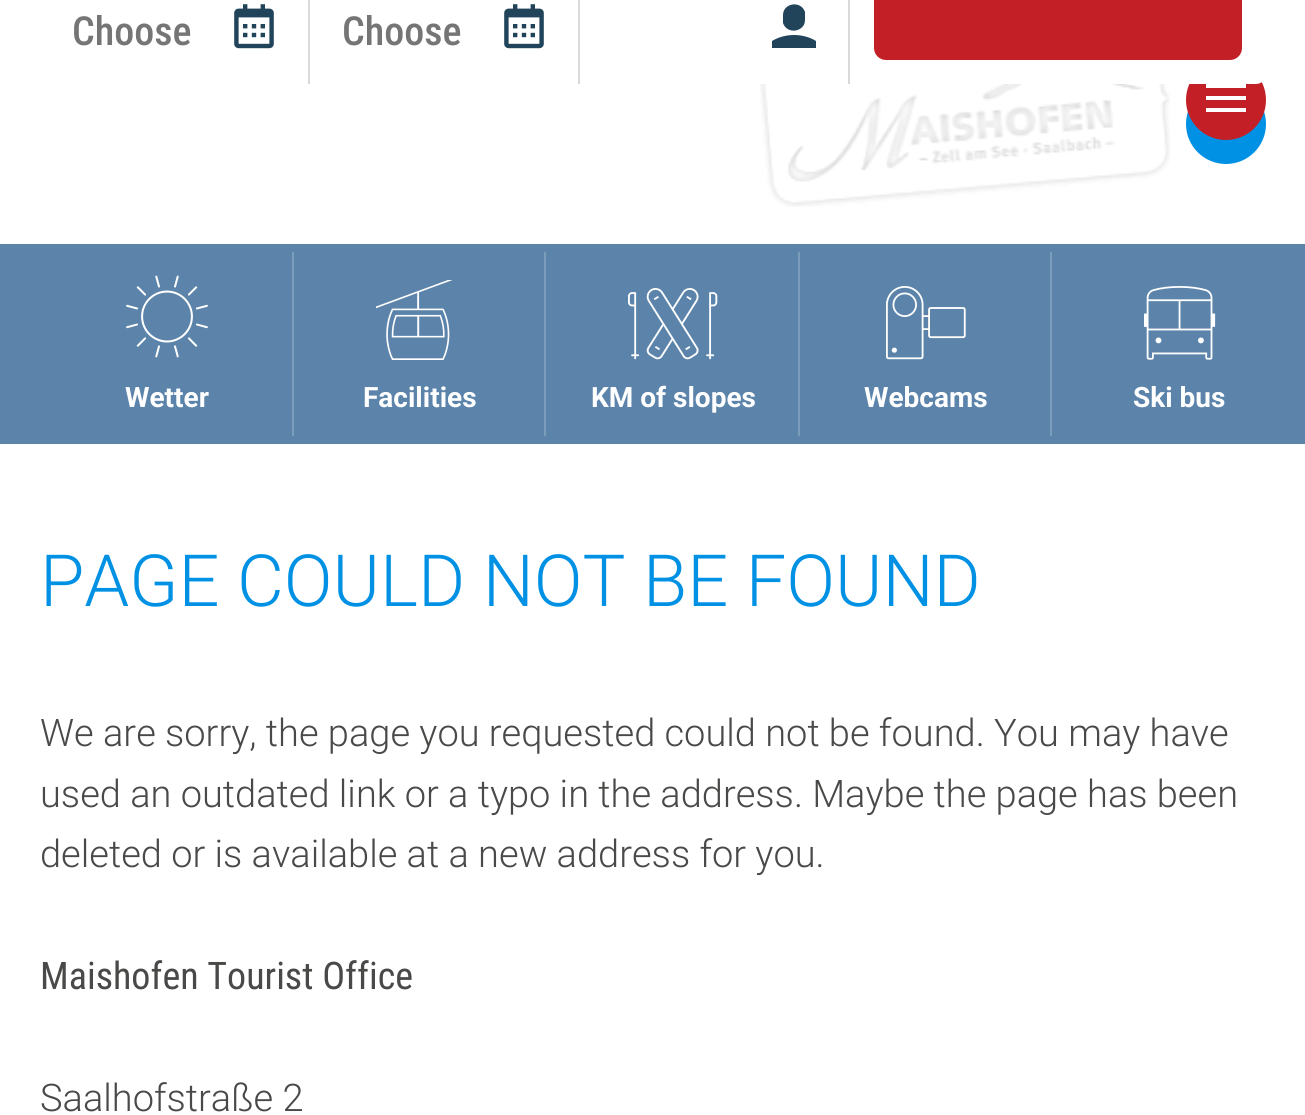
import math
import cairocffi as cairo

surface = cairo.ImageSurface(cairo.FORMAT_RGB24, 1305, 1115)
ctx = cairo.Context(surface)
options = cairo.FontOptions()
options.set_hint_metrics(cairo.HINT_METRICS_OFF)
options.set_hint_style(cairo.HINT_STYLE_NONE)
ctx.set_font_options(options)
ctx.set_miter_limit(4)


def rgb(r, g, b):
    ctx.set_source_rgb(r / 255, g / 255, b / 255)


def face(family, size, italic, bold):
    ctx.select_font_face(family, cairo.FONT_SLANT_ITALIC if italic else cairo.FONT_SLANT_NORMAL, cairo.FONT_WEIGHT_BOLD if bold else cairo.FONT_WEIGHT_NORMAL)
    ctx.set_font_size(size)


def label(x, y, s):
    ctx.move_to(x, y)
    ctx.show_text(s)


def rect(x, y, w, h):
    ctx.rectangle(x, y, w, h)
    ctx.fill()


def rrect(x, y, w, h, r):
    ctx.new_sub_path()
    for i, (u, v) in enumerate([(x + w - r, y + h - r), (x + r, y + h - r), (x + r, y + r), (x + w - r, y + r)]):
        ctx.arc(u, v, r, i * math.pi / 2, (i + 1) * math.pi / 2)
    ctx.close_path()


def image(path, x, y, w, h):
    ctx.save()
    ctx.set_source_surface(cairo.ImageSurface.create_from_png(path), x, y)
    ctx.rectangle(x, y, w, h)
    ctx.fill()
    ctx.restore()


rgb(255, 255, 255)
ctx.paint()
rgb(217, 217, 217)
rect(308, 0, 2, 84)
face('Roboto Condensed Medium', 40, 0, 0)
rgb(117, 117, 117)
label(72, 45, 'Choose')
image('image0.png', 234, 4, 40, 45)
rgb(217, 217, 217)
rect(578, 0, 2, 84)
rgb(117, 117, 117)
label(342, 45, 'Choose')
image('image0.png', 504, 4, 40, 45)
rgb(217, 217, 217)
rect(848, 0, 2, 84)
rgb(33, 68, 91)
ctx.new_path()
ctx.move_to(783, 15)
ctx.curve_to(783, 3, 801, 0, 805, 12)
ctx.line_to(805, 20)
ctx.curve_to(805, 32, 787, 35, 783, 23)
ctx.close_path()
ctx.move_to(772, 41)
ctx.curve_to(785, 33, 803, 33, 816, 41)
ctx.line_to(816, 48)
ctx.line_to(772, 48)
ctx.close_path()
ctx.fill()
rgb(0, 145, 228)
ctx.arc(1226, 124, 40, 0, 2 * math.pi)
ctx.fill()
rgb(195, 31, 38)
ctx.arc(1226, 100, 40, 0, 2 * math.pi)
ctx.fill()
rgb(255, 255, 255)
ctx.new_path()
ctx.move_to(850, -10)
ctx.line_to(1256, -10)
ctx.curve_to(1261.5, -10, 1266, -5.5, 1266, 0)
ctx.line_to(1266, 74)
ctx.curve_to(1266, 79.5, 1261.5, 84, 1256, 84)
ctx.line_to(850, 84)
ctx.close_path()
ctx.fill()
rgb(195, 31, 38)
rrect(874, -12, 368, 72, 12)
ctx.fill()
image('image1.png', 760, 84, 410, 123)
rgb(255, 255, 255)
ctx.new_path()
ctx.move_to(1206, 84)
ctx.line_to(1246, 84)
ctx.line_to(1246, 88)
ctx.line_to(1206, 88)
ctx.close_path()
ctx.move_to(1206, 96)
ctx.line_to(1246, 96)
ctx.line_to(1246, 100)
ctx.line_to(1206, 100)
ctx.close_path()
ctx.move_to(1206, 108)
ctx.line_to(1246, 108)
ctx.line_to(1246, 112)
ctx.line_to(1206, 112)
ctx.close_path()
ctx.fill()
rgb(92, 132, 171)
rect(0, 244, 1305, 200)
image('image2.png', 126, 275, 82, 83)
face('Roboto', 28, 0, 1)
rgb(255, 255, 255)
label(125, 407, 'Wetter')
rgb(124, 156, 188)
rect(292, 252, 2, 184)
image('image3.png', 376, 280, 76, 80)
rgb(255, 255, 255)
label(363, 407, 'Facilities')
rgb(124, 156, 188)
rect(544, 252, 2, 184)
image('image4.png', 628, 288, 90, 72)
rgb(255, 255, 255)
label(591, 407, 'KM of slopes')
rgb(124, 156, 188)
rect(798, 252, 2, 184)
image('image5.png', 886, 286, 80, 74)
rgb(255, 255, 255)
label(864, 407, 'Webcams')
rgb(124, 156, 188)
rect(1050, 252, 2, 184)
image('image6.png', 1144, 286, 72, 74)
rgb(255, 255, 255)
label(1133, 407, 'Ski bus')
face('Roboto Light', 72, 0, 0)
rgb(0, 145, 228)
label(40, 606, 'PAGE COULD NOT BE FOUND')
face('Roboto Light', 38, 0, 0)
rgb(73, 73, 72)
label(40, 746, 'We are sorry, the page you requested could not be found. You may have')
label(40, 807, 'used an outdated link or a typo in the address. Maybe the page has been')
label(40, 867, 'deleted or is available at a new address for you.')
face('Roboto Condensed', 38, 0, 0)
label(40, 989, 'Maishofen Tourist Office')
face('Roboto Light', 38, 0, 0)
label(40, 1111, 'Saalhofstraße 2')
surface.write_to_png('render.png')
